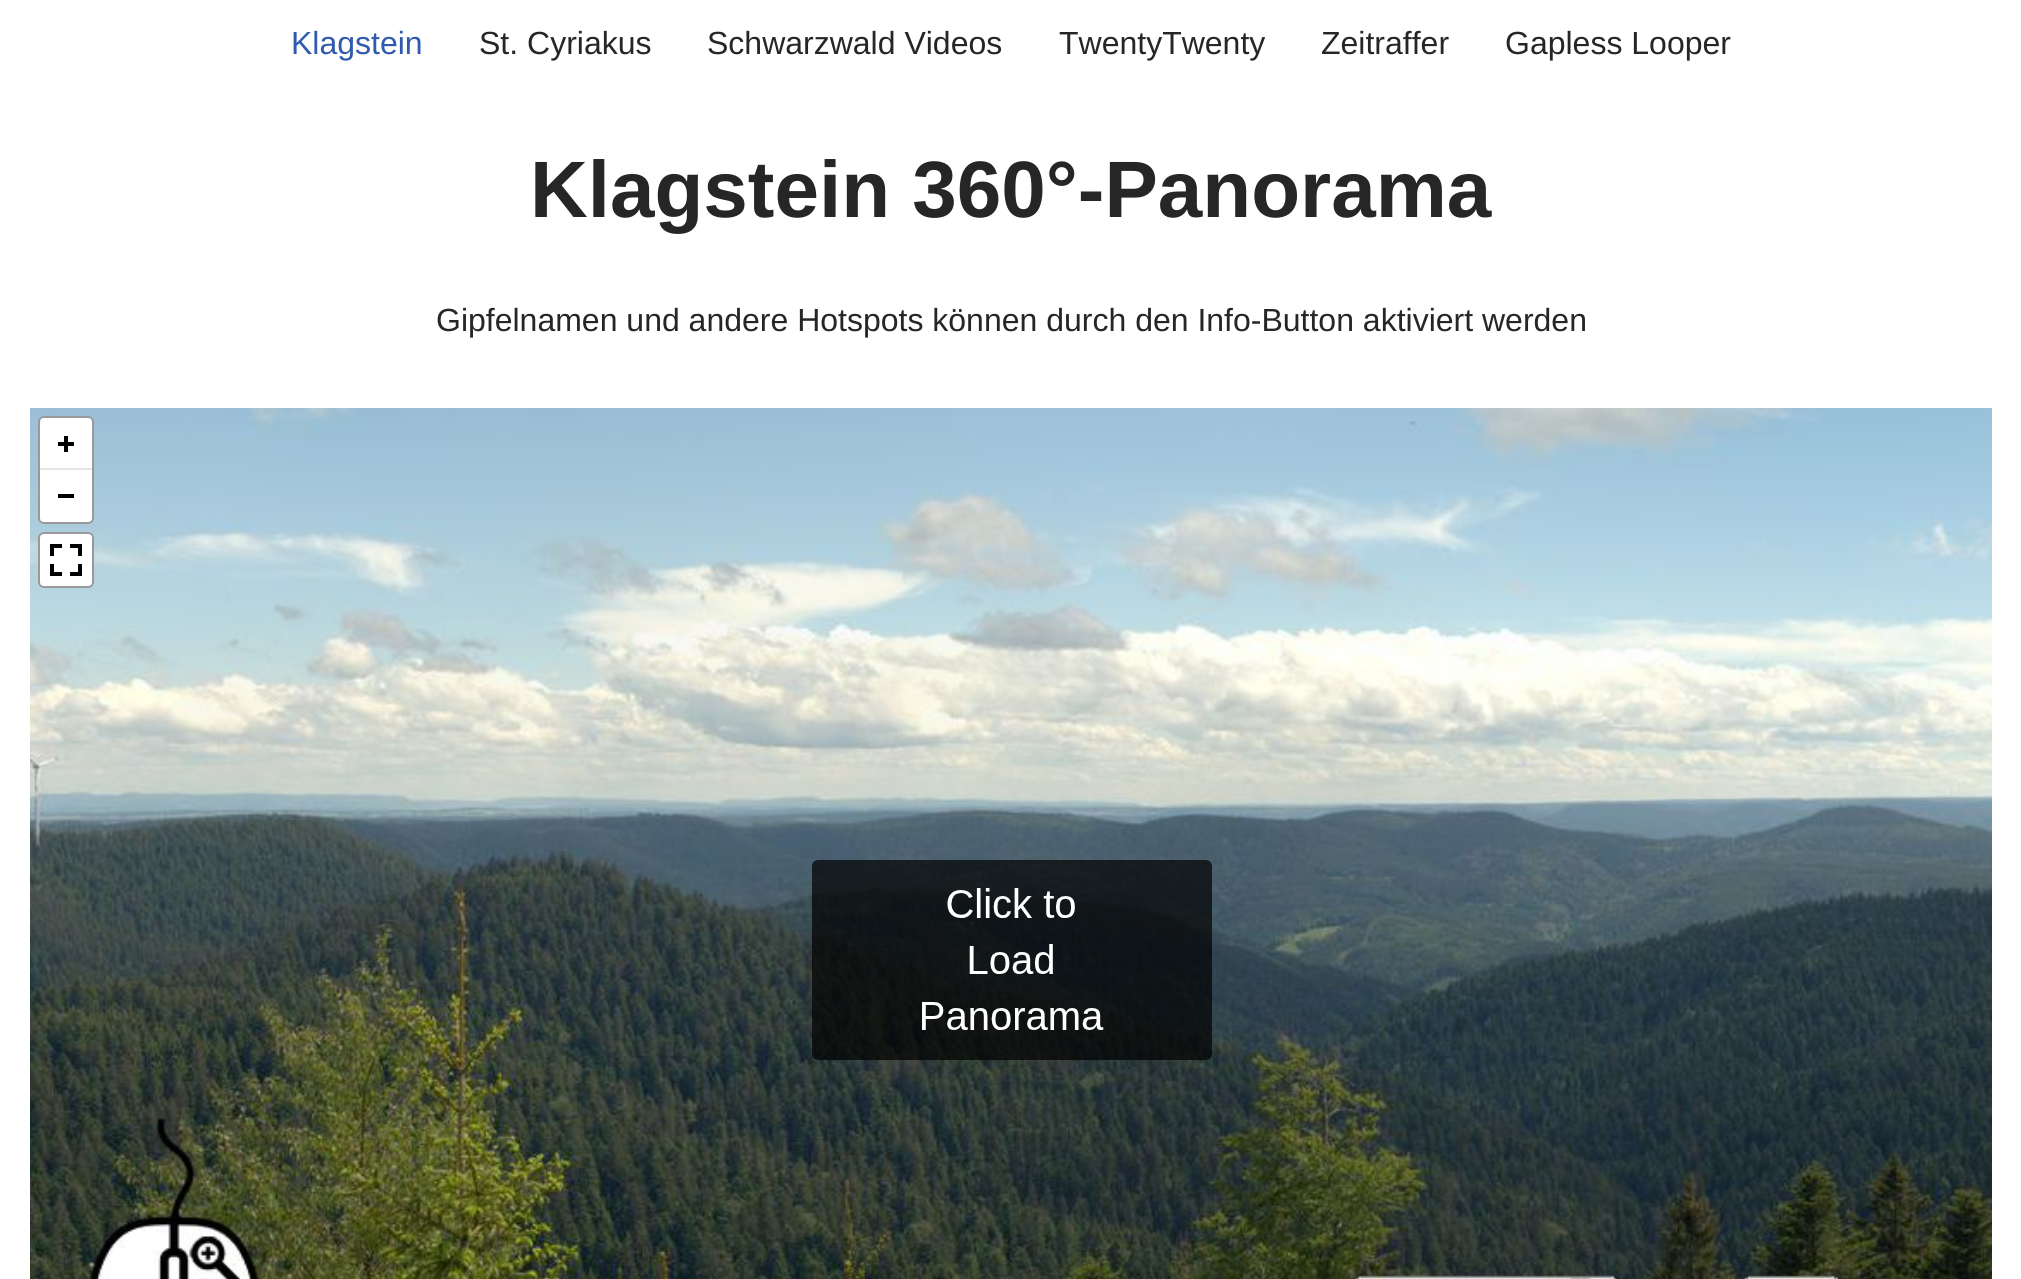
import math
import cairocffi as cairo

surface = cairo.ImageSurface(cairo.FORMAT_RGB24, 2021, 1279)
ctx = cairo.Context(surface)
options = cairo.FontOptions()
options.set_hint_metrics(cairo.HINT_METRICS_OFF)
options.set_hint_style(cairo.HINT_STYLE_NONE)
ctx.set_font_options(options)
ctx.set_miter_limit(4)


def rgb(r, g, b):
    ctx.set_source_rgb(r / 255, g / 255, b / 255)


def face(family, size, italic, bold):
    ctx.select_font_face(family, cairo.FONT_SLANT_ITALIC if italic else cairo.FONT_SLANT_NORMAL, cairo.FONT_WEIGHT_BOLD if bold else cairo.FONT_WEIGHT_NORMAL)
    ctx.set_font_size(size)


def label(x, y, s):
    ctx.move_to(x, y)
    ctx.show_text(s)


def image(path, x, y, w, h):
    ctx.save()
    ctx.set_source_surface(cairo.ImageSurface.create_from_png(path), x, y)
    ctx.rectangle(x, y, w, h)
    ctx.fill()
    ctx.restore()


rgb(255, 255, 255)
ctx.paint()
face('Liberation Sans', 32, 0, 0)
rgb(47, 90, 174)
label(291, 54, 'Klagstein')
rgb(39, 38, 38)
label(479, 54, 'St. Cyriakus')
label(707, 54, 'Schwarzwald Videos')
label(1059, 54, 'TwentyTwenty')
label(1321, 54, 'Zeitraffer')
label(1505, 54, 'Gapless Looper')
face('Liberation Sans', 80, 0, 1)
label(530, 217, 'Klagstein 360°-Panorama')
face('Liberation Sans', 32, 0, 0)
label(436, 331, 'Gipfelnamen und andere Hotspots können durch den Info-Button aktiviert werden')
image('image0.png', 30, 408, 1962, 871)
surface.write_to_png('render.png')
